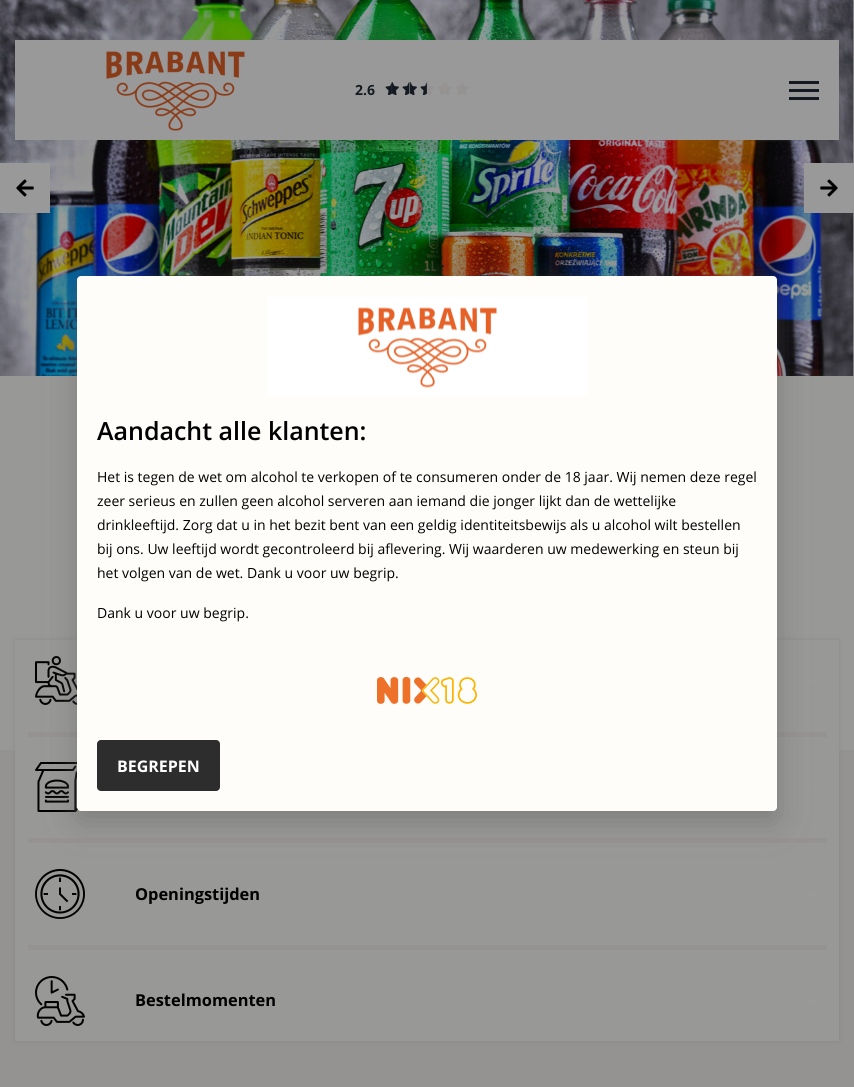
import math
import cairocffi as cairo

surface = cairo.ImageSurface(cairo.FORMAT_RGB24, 854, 1087)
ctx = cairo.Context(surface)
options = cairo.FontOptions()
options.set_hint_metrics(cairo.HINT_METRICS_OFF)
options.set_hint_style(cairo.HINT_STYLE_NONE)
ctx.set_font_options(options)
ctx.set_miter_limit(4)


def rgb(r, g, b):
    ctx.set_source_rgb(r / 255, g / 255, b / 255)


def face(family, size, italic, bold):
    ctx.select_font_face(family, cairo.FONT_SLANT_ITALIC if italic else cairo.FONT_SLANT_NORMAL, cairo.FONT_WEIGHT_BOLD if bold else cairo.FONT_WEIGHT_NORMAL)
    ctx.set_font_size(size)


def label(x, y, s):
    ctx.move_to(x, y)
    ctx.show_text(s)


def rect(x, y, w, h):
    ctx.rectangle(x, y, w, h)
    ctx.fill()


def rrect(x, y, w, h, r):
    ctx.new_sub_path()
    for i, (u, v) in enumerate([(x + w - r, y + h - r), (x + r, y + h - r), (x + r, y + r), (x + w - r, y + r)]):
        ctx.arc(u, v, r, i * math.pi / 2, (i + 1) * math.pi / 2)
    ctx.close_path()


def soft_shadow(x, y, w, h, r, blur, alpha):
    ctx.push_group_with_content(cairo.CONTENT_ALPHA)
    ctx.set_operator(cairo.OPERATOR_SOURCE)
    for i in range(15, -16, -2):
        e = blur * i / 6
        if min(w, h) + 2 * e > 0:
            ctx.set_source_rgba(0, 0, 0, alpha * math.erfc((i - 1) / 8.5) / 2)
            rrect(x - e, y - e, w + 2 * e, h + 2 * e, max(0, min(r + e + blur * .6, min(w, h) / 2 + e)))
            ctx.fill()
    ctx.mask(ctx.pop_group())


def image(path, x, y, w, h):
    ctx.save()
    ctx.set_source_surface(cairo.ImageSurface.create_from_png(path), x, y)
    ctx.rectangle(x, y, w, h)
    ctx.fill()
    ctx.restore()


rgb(152, 152, 150)
ctx.paint()
image('image0.png', 0, 0, 854, 376)
rgb(153, 153, 153)
rect(0, 163, 50, 50)
image('image1.png', 16, 179, 18, 18)
rect(804, 163, 50, 50)
image('image2.png', 820, 179, 18, 18)
rect(15, 40, 824, 100)
image('image3.png', 106, 51, 139, 80)
face('Open Sans', 14, 0, 1)
rgb(19, 26, 33)
label(355, 95, '2.6')
image('image4.png', 385, 82, 8, 13)
image('image5.png', 391, 82, 8, 13)
image('image4.png', 402, 82, 8, 13)
image('image6.png', 409, 82, 8, 13)
image('image4.png', 420, 82, 8, 13)
image('image7.png', 426, 82, 8, 13)
image('image8.png', 437, 82, 8, 13)
image('image9.png', 445, 82, 7, 13)
image('image8.png', 455, 82, 8, 13)
image('image10.png', 462, 82, 7, 13)
rect(789, 81, 30, 3)
rect(789, 89, 30, 3)
rect(789, 97, 30, 3)
rgb(149, 147, 146)
rect(0, 750, 854, 337)
rgb(0, 0, 0)
soft_shadow(15, 640, 824, 401, 0, 2.5, 0.1)
rgb(152, 152, 150)
rect(15, 640, 824, 401)
image('image13.png', 35, 656, 42, 49)
image('image14.png', 806, 677, 13, 7)
rgb(149, 147, 145)
rect(28, 732, 799, 5)
image('image15.png', 35, 762, 44, 50)
image('image16.png', 806, 784, 13, 7)
rect(28, 838, 799, 5)
rgb(100, 100, 100)
soft_shadow(77, 286, 700, 535, 4, 15, 0.5)
rgb(254, 253, 250)
rrect(77, 276, 700, 535, 4)
ctx.fill()
image('image11.png', 267, 297, 320, 99)
face('Open Sans SemiBold', 25, 0, 0)
rgb(0, 0, 0)
label(97, 440, 'Aandacht alle klanten:')
face('Open Sans', 14, 0, 0)
label(97, 482, 'Het is tegen de wet om alcohol te verkopen of te consumeren onder de 18 jaar. Wij nemen deze regel')
label(97, 506, 'zeer serieus en zullen geen alcohol serveren aan iemand die jonger lijkt dan de wettelijke')
label(97, 530, 'drinkleeftijd. Zorg dat u in het bezit bent van een geldig identiteitsbewijs als u alcohol wilt bestellen')
label(97, 554, 'bij ons. Uw leeftijd wordt gecontroleerd bij aflevering. Wij waarderen uw medewerking en steun bij')
label(97, 578, 'het volgen van de wet. Dank u voor uw begrip.')
label(97, 618, 'Dank u voor uw begrip.')
image('image12.png', 377, 676, 100, 28)
rgb(45, 45, 45)
rrect(97, 740, 123, 51, 4)
ctx.fill()
face('Open Sans', 16, 0, 1)
rgb(255, 255, 255)
label(117, 772, 'BEGREPEN')
image('image17.png', 35, 869, 50, 50)
face('Open Sans', 16.4, 0, 1)
rgb(0, 0, 0)
label(135, 900, 'Openingstijden')
image('image18.png', 806, 890, 13, 8)
rgb(149, 147, 145)
rect(28, 945, 799, 5)
image('image19.png', 35, 976, 50, 50)
rgb(0, 0, 0)
label(135, 1006, 'Bestelmomenten')
image('image20.png', 806, 997, 13, 7)
surface.write_to_png('render.png')
